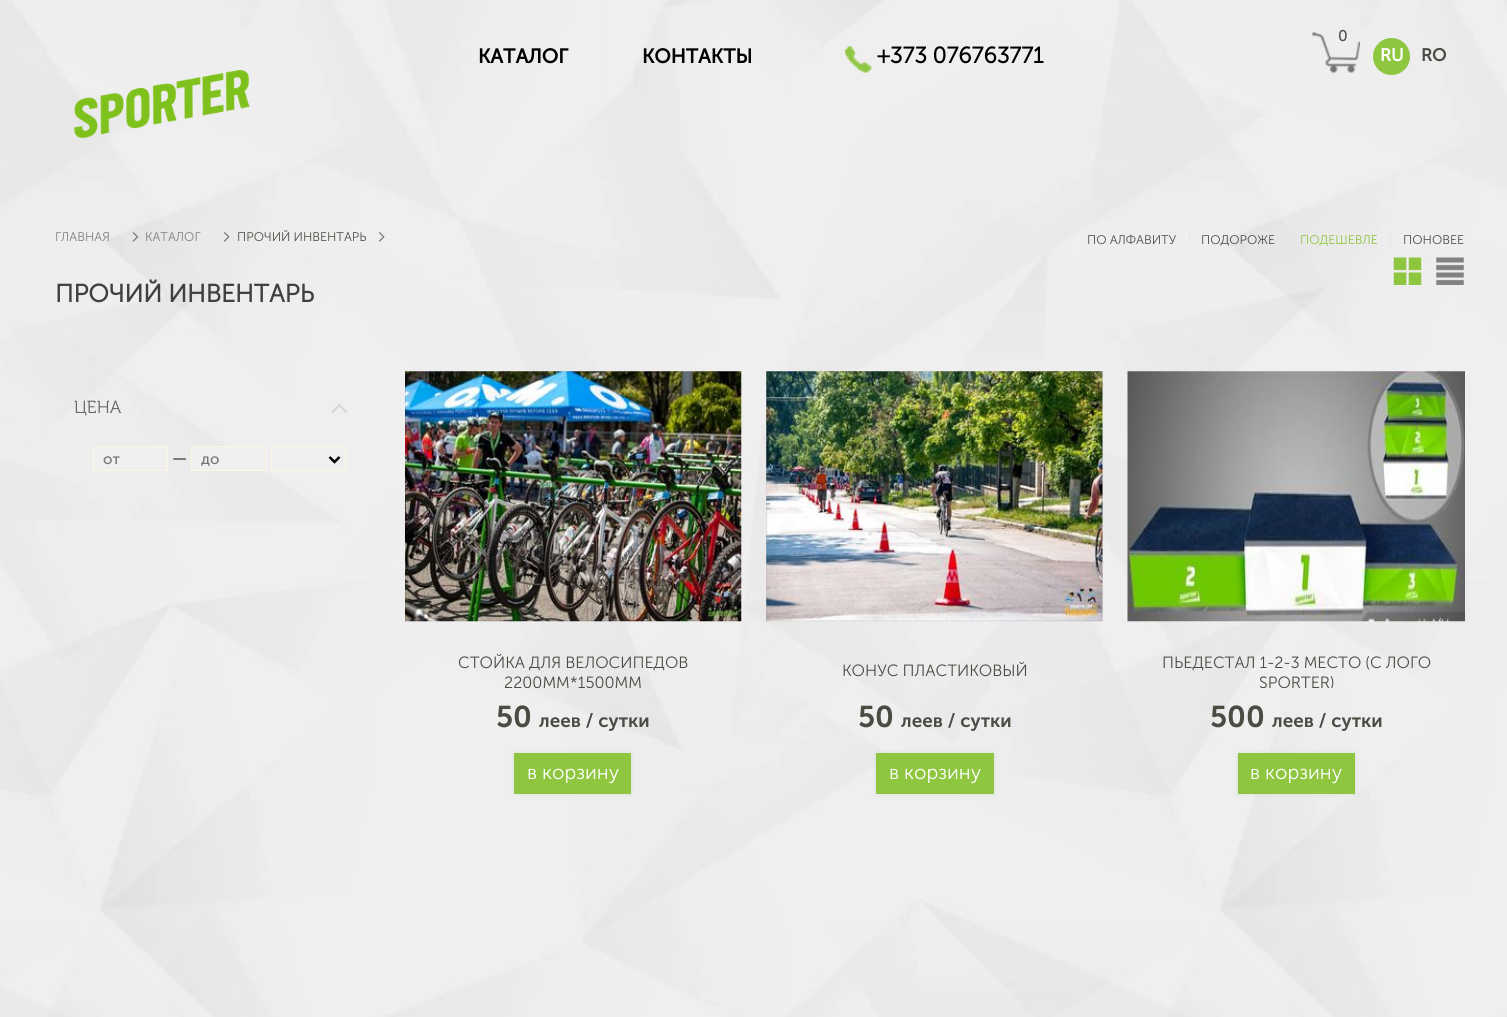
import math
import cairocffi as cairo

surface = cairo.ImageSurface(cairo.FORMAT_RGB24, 1507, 1017)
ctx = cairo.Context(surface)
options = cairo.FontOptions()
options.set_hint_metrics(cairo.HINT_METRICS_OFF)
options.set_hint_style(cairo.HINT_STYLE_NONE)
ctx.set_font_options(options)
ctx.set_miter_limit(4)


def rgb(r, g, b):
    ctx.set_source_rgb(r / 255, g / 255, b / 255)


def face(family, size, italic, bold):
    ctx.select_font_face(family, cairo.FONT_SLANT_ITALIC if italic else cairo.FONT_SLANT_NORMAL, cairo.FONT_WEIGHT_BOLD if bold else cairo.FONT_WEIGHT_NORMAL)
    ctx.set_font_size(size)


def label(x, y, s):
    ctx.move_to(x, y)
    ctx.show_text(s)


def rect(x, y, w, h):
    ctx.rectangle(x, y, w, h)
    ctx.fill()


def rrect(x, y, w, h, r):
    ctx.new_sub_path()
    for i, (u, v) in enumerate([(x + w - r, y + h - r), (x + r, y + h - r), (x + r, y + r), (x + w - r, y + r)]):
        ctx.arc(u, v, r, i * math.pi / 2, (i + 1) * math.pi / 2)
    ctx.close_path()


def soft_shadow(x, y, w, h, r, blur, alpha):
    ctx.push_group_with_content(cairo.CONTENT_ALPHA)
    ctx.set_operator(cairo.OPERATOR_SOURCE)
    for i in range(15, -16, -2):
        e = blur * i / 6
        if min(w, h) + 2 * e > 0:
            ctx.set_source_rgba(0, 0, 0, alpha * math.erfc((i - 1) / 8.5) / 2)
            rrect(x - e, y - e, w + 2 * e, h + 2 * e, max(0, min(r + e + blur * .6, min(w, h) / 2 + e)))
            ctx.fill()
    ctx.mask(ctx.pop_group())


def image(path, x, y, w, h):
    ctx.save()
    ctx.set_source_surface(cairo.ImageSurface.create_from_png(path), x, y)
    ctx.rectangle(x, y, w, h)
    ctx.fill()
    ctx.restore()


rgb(255, 255, 255)
ctx.paint()
image('image0.png', 0, 0, 1507, 1017)
face('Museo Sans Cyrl', 20, 0, 1)
rgb(0, 0, 0)
label(478, 63, 'КАТАЛОГ')
rgb(235, 235, 235)
ctx.new_path()
ctx.move_to(605, 108)
ctx.line_to(605, 0)
ctx.line_to(606, 1)
ctx.line_to(606, 106)
ctx.close_path()
ctx.fill()
rgb(0, 0, 0)
label(642, 63, 'КОНТАКТЫ')
rgb(235, 235, 235)
ctx.new_path()
ctx.move_to(1062, 15)
ctx.line_to(1062, 92)
ctx.line_to(1061, 91)
ctx.line_to(1061, 16)
ctx.close_path()
ctx.fill()
ctx.new_path()
ctx.move_to(790, 92)
ctx.line_to(790, 15)
ctx.line_to(791, 16)
ctx.line_to(791, 91)
ctx.close_path()
ctx.fill()
image('image1.png', 845, 46, 27, 27)
face('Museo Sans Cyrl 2', 22.5, 0, 1)
rgb(0, 0, 0)
label(877, 63, '+373 076763771')
image('image2.png', 1312, 32, 48, 41)
face('Museo Sans Cyrl 2', 15, 0, 1)
rgb(73, 76, 67)
label(1338, 41, '0')
rgb(142, 198, 63)
ctx.new_path()
ctx.arc(1391.5, 56.5, 18.5, 0, 2 * math.pi)
ctx.fill()
face('Museo Sans Cyrl', 17.5, 0, 1)
rgb(255, 255, 255)
label(1380, 61, 'RU')
rgb(73, 76, 67)
label(1421, 61, 'RO')
image('image3.png', 74, 69, 176, 69)
face('Museo Sans Cyrl Light', 12.5, 0, 0)
rgb(126, 126, 126)
label(55, 241, 'ГЛАВНАЯ')
image('image4.png', 132, 232, 7, 10)
label(145, 241, 'КАТАЛОГ')
image('image5.png', 224, 232, 6, 10)
rgb(73, 76, 67)
label(237, 241, 'ПРОЧИЙ ИНВЕНТАРЬ')
image('image6.png', 379, 232, 6, 10)
face('Museo Sans Cyrl 2', 25, 0, 1)
rgb(64, 64, 64)
label(55, 302, 'ПРОЧИЙ ИНВЕНТАРЬ')
face('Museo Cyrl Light', 17.5, 0, 0)
rgb(105, 103, 99)
label(74, 413, 'ЦЕНА')
image('image7.png', 331, 404, 16, 9)
rgb(240, 240, 240)
rect(96, 447, 71, 23)
ctx.rectangle(93.5, 446.5, 74, 24)
rgb(253, 245, 230)
ctx.set_line_width(1)
ctx.stroke()
face('Museo Sans Cyrl', 15, 0, 0)
rgb(117, 117, 117)
label(103, 464, 'от')
face('Museo Sans Cyrl', 17.5, 0, 0)
rgb(73, 76, 67)
label(172, 464, '—')
rgb(240, 240, 240)
rect(192, 447, 69, 23)
ctx.rectangle(191.5, 446.5, 74, 24)
rgb(253, 245, 230)
ctx.stroke()
face('Museo Sans Cyrl', 15, 0, 0)
rgb(117, 117, 117)
label(201, 464, 'до')
ctx.rectangle(271.5, 446.5, 74, 24)
rgb(253, 245, 230)
ctx.stroke()
ctx.new_path()
ctx.move_to(329.5, 457)
ctx.line_to(334.5, 462)
ctx.line_to(339.5, 457)
rgb(0, 0, 0)
ctx.set_line_width(2.5)
ctx.stroke()
face('Museo Sans Cyrl Light', 12.5, 0, 0)
rgb(73, 76, 67)
label(1087, 244, 'ПО АЛФАВИТУ')
rgb(229, 229, 229)
rect(1189, 233, 1, 12)
rgb(73, 76, 67)
label(1201, 244, 'ПОДОРОЖЕ')
rgb(142, 198, 63)
label(1300, 244, 'ПОДЕШЕВЛЕ')
rgb(229, 229, 229)
rect(1390, 233, 1, 12)
rgb(73, 76, 67)
label(1403, 244, 'ПОНОВЕЕ')
image('image8.png', 1393, 257, 29, 28)
image('image9.png', 1436, 257, 28, 28)
image('image10.png', 405, 371, 337, 251)
face('Museo Sans Cyrl Light', 16.25, 0, 0)
label(458, 668, 'СТОЙКА ДЛЯ ВЕЛОСИПЕДОВ')
ctx.save()
ctx.rectangle(405, 653, 336, 35)
ctx.clip()
label(504, 688, '2200ММ*1500ММ')
ctx.restore()
face('Museo Sans Cyrl SemiBold', 30, 0, 0)
label(496, 727, '50')
face('Museo Sans Cyrl SemiBold', 18.75, 0, 0)
label(539, 727, 'леев / сутки')
rgb(221, 221, 221)
soft_shadow(514, 753, 117, 41, 0, 2.5, 1)
rgb(142, 198, 63)
rect(514, 753, 117, 41)
face('Museo Sans Cyrl Light', 20, 0, 0)
rgb(255, 255, 255)
label(527, 779, 'в корзину')
image('image11.png', 766, 371, 337, 251)
face('Museo Sans Cyrl Light', 16.25, 0, 0)
rgb(73, 76, 67)
label(842, 676, 'КОНУС ПЛАСТИКОВЫЙ')
face('Museo Sans Cyrl SemiBold', 30, 0, 0)
label(858, 727, '50')
face('Museo Sans Cyrl SemiBold', 18.75, 0, 0)
label(901, 727, 'леев / сутки')
rgb(221, 221, 221)
soft_shadow(876, 753, 118, 41, 0, 2.5, 1)
rgb(142, 198, 63)
rect(876, 753, 118, 41)
face('Museo Sans Cyrl Light', 20, 0, 0)
rgb(255, 255, 255)
label(889, 779, 'в корзину')
image('image12.png', 1127, 371, 338, 251)
face('Museo Sans Cyrl Light', 16.25, 0, 0)
rgb(73, 76, 67)
label(1162, 668, 'ПЬЕДЕСТАЛ 1-2-3 МЕСТО (С ЛОГО')
ctx.save()
ctx.rectangle(1128, 653, 337, 35)
ctx.clip()
label(1259, 688, 'SPORTER)')
ctx.restore()
face('Museo Sans Cyrl SemiBold', 30, 0, 0)
label(1210, 727, '500')
face('Museo Sans Cyrl SemiBold', 18.75, 0, 0)
label(1272, 727, 'леев / сутки')
rgb(221, 221, 221)
soft_shadow(1238, 753, 117, 41, 0, 2.5, 1)
rgb(142, 198, 63)
rect(1238, 753, 117, 41)
face('Museo Sans Cyrl Light', 20, 0, 0)
rgb(255, 255, 255)
label(1250, 779, 'в корзину')
surface.write_to_png('render.png')
